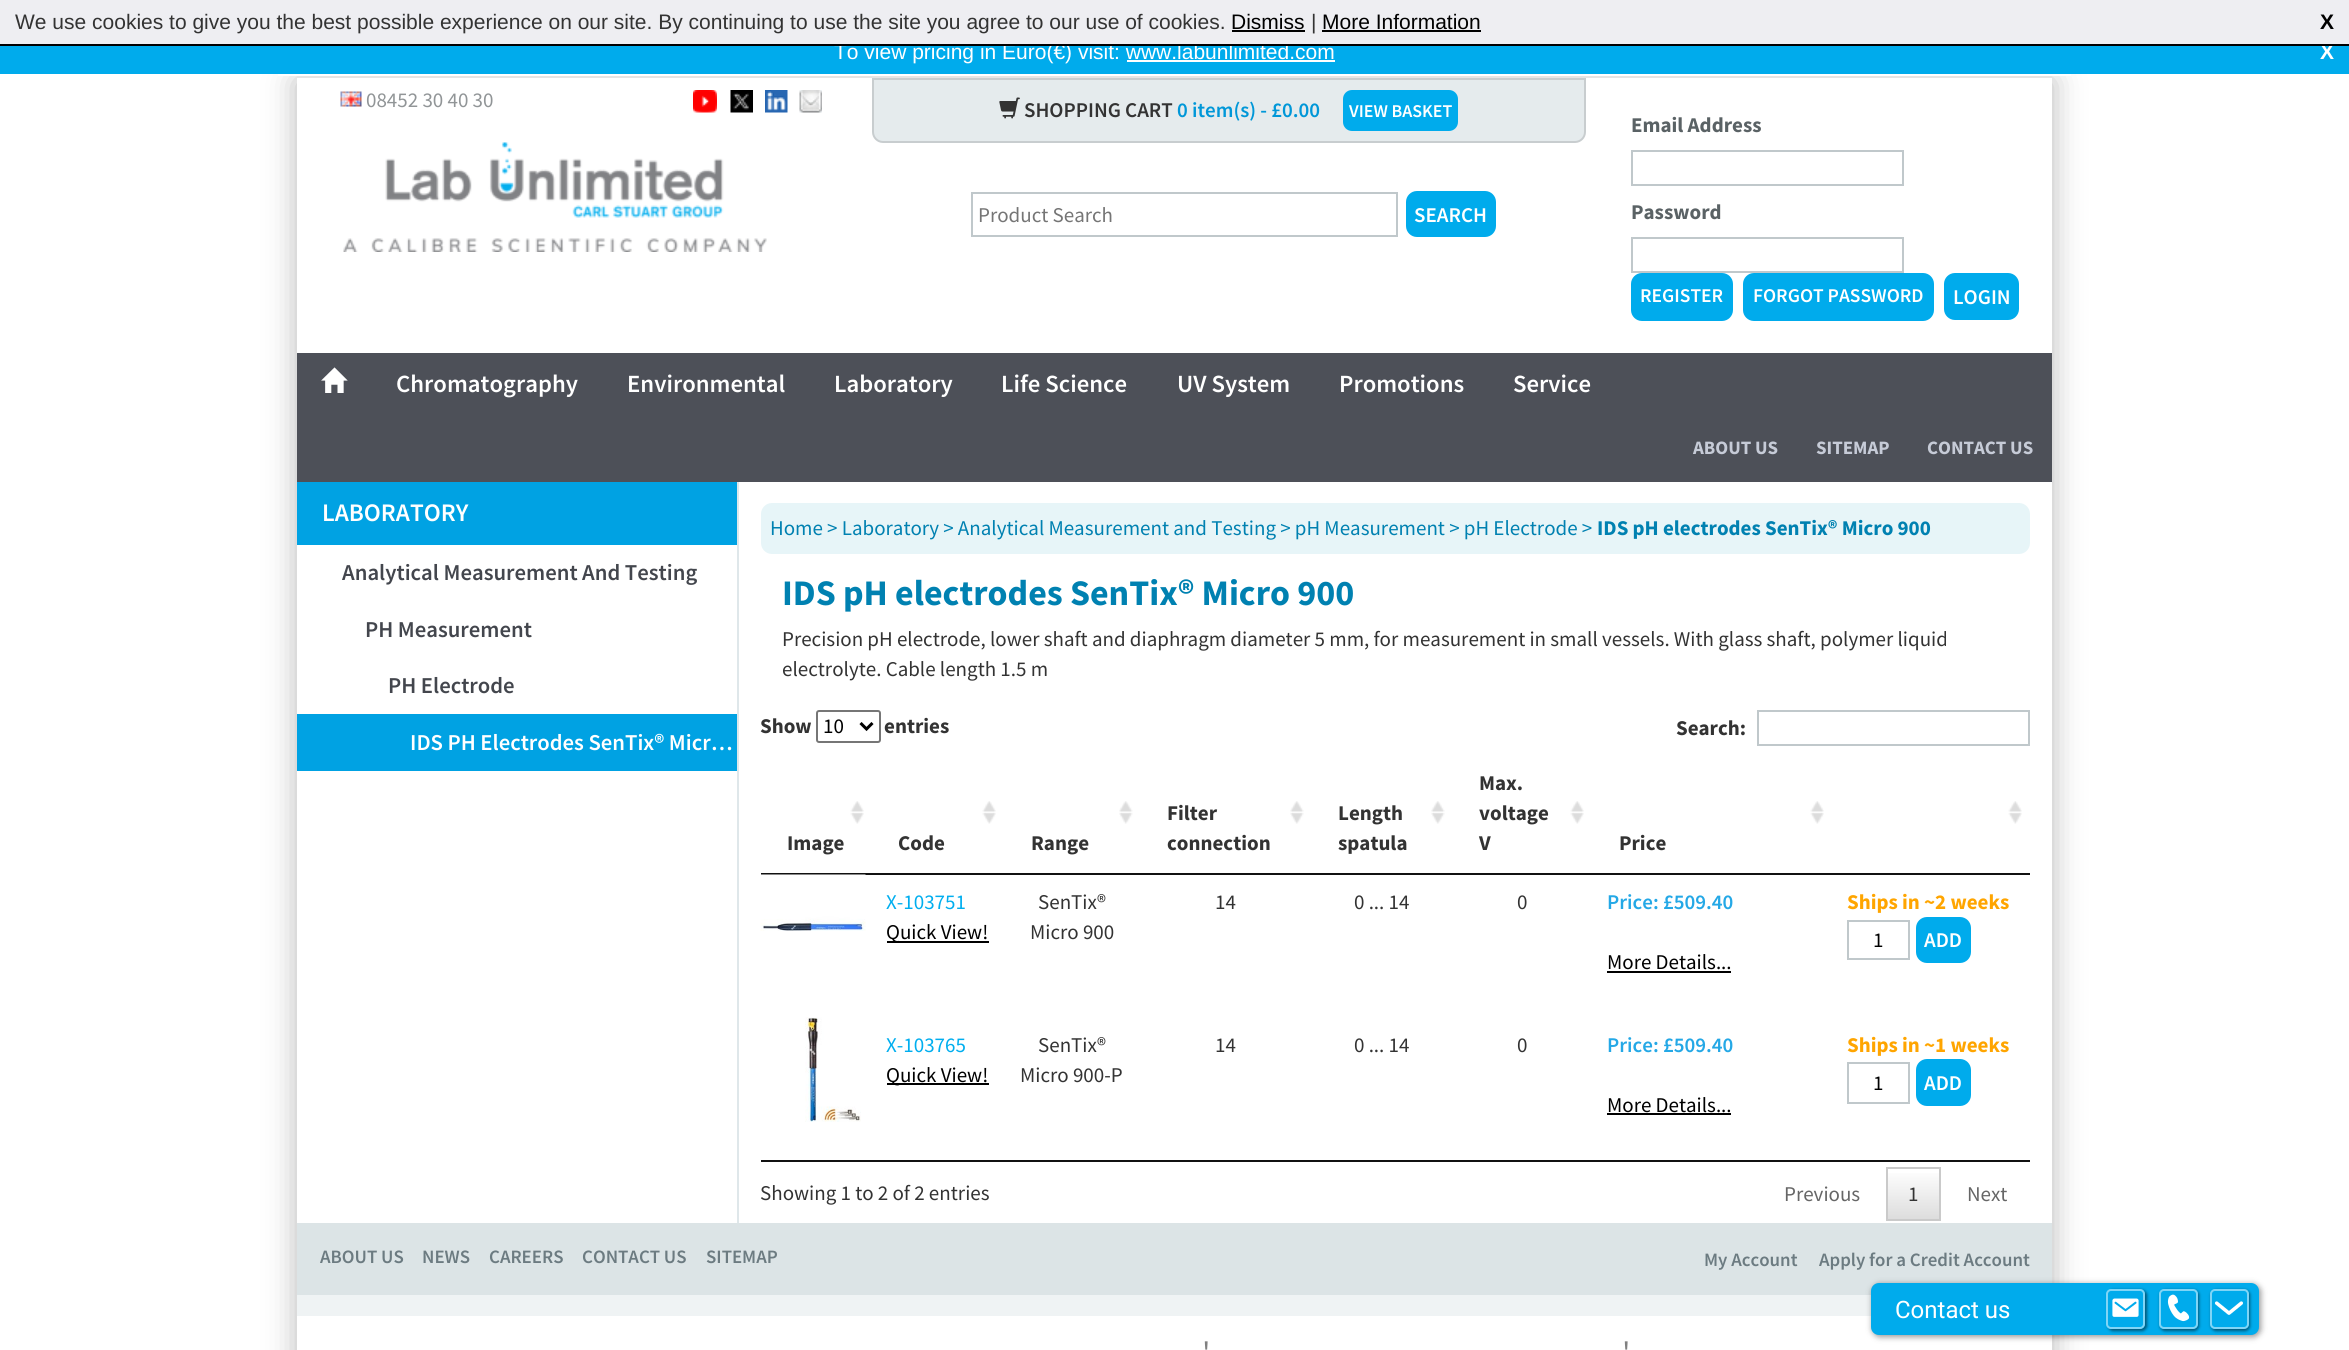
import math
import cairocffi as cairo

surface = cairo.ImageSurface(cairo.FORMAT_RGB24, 2349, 1350)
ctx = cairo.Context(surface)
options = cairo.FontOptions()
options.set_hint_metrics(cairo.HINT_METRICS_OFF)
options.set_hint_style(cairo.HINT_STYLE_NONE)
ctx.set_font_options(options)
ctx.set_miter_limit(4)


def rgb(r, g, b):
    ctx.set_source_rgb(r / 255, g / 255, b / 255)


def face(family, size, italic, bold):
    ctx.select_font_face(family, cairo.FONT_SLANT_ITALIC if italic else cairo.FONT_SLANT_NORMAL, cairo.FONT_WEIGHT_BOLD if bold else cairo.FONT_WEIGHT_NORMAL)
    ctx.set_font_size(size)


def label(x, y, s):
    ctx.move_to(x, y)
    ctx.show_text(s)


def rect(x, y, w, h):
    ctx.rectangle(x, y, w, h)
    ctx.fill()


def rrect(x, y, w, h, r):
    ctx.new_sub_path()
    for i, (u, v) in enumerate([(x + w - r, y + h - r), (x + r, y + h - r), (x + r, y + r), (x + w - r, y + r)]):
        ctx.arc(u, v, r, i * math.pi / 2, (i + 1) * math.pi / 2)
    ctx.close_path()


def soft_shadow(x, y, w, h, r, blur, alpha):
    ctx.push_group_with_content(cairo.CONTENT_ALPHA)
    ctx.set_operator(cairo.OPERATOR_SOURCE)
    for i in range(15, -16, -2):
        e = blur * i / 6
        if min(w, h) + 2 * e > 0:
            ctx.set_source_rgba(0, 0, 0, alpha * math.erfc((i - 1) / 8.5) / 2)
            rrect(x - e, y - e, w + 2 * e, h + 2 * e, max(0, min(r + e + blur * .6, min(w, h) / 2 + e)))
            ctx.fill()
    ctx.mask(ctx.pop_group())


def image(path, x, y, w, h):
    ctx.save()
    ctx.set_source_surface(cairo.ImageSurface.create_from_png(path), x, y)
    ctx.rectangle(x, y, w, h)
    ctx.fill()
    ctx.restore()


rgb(255, 255, 255)
ctx.paint()
ctx.save()
ctx.set_fill_rule(cairo.FILL_RULE_EVEN_ODD)
ctx.new_path()
ctx.move_to(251, 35)
ctx.line_to(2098, 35)
ctx.line_to(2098, 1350)
ctx.line_to(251, 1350)
ctx.close_path()
ctx.move_to(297, 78)
ctx.line_to(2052, 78)
ctx.line_to(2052, 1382)
ctx.line_to(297, 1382)
ctx.close_path()
ctx.clip()
rgb(126, 126, 126)
soft_shadow(297, 81, 1755, 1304, 0, 15, 0.57)
ctx.restore()
rgb(0, 171, 236)
rect(0, 46, 2349, 28)
face('Liberation Sans', 21, 0, 0)
rgb(255, 255, 255)
label(834, 59, 'To view pricing in Euro(€) visit: www.labunlimited.com')
rgb(238, 238, 242)
rect(0, 0, 2349, 44)
face('Liberation Sans', 21, 0, 1)
rgb(255, 255, 255)
label(2320, 59, 'X')
rgb(0, 0, 0)
rect(0, 44, 2349, 2)
face('Liberation Sans', 21, 0, 0)
rgb(51, 51, 51)
label(15, 29, 'We use cookies to give you the best possible experience on our site. By continuing to use the site you agree to our use of cookies.')
rgb(0, 0, 0)
label(1231, 29, 'Dismiss')
rect(1232, 30, 73, 2)
rgb(51, 51, 51)
label(1311, 29, '|')
rgb(0, 0, 0)
label(1322, 29, 'More Information')
rect(1322, 30, 159, 2)
face('Liberation Sans', 21, 0, 1)
label(2320, 29, 'X')
rgb(255, 255, 255)
rect(278, 74, 1793, 2)
rect(1127, 60, 208, 2)
image('image0.png', 340, 91, 22, 16)
face('Source Sans Pro', 21, 0, 0)
rgb(145, 149, 151)
label(366, 107, '08452 30 40 30')
image('image1.png', 693, 90, 24, 23)
image('image2.png', 730, 90, 23, 23)
image('image3.png', 765, 90, 23, 23)
image('image4.png', 799, 90, 23, 23)
rgb(229, 235, 237)
ctx.new_path()
ctx.move_to(873, 79)
ctx.line_to(1585, 79)
ctx.line_to(1585, 132)
ctx.curve_to(1585, 137.5, 1580.5, 142, 1575, 142)
ctx.line_to(883, 142)
ctx.curve_to(877.5, 142, 873, 137.5, 873, 132)
ctx.close_path()
ctx.fill_preserve()
rgb(200, 205, 207)
ctx.stroke()
image('image5.png', 999, 97, 21, 22)
face('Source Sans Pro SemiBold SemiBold', 21, 0, 0)
rgb(51, 51, 51)
label(1024, 117, 'SHOPPING CART')
rgb(0, 151, 216)
label(1177, 117, '0 item(s) - £0.00')
rgb(0, 171, 236)
rrect(1343, 90, 115, 41, 9)
ctx.fill()
face('Source Sans Pro SemiBold SemiBold', 18, 0, 0)
rgb(255, 255, 255)
label(1349, 117, 'VIEW BASKET')
image('image6.png', 343, 142, 424, 110)
ctx.rectangle(972, 193, 425, 43)
rgb(192, 200, 203)
ctx.stroke()
face('Source Sans Pro', 21, 0, 0)
rgb(117, 117, 117)
label(978, 222, 'Product Search')
rgb(0, 171, 236)
rrect(1406, 191, 90, 46, 11)
ctx.fill()
face('Source Sans Pro SemiBold SemiBold', 21, 0, 0)
rgb(255, 255, 255)
label(1414, 222, 'SEARCH')
face('Source Sans Pro', 21, 0, 1)
rgb(90, 98, 101)
label(1631, 132, 'Email Address')
ctx.rectangle(1632, 151, 271, 34)
rgb(192, 200, 203)
ctx.stroke()
rgb(90, 98, 101)
label(1631, 219, 'Password')
ctx.rectangle(1632, 238, 271, 34)
rgb(192, 200, 203)
ctx.stroke()
rgb(0, 171, 236)
rrect(1631, 273, 102, 48, 11)
ctx.fill()
face('Source Sans Pro SemiBold SemiBold', 19.5, 0, 0)
rgb(255, 255, 255)
label(1640, 302, 'REGISTER')
rgb(0, 171, 236)
rrect(1743, 273, 191, 48, 11)
ctx.fill()
rgb(255, 255, 255)
label(1753, 302, 'FORGOT PASSWORD')
rgb(0, 171, 236)
rrect(1944, 273, 75, 47, 11)
ctx.fill()
face('Source Sans Pro SemiBold SemiBold', 21, 0, 0)
rgb(255, 255, 255)
label(1953, 304, 'LOGIN')
rgb(77, 80, 88)
rect(297, 353, 1755, 129)
image('image7.png', 321, 367, 27, 26)
face('Source Sans Pro SemiBold SemiBold', 24.75, 0, 0)
rgb(255, 255, 255)
label(396, 392, 'Chromatography')
label(627, 392, 'Environmental')
label(834, 392, 'Laboratory')
label(1001, 392, 'Life Science')
label(1177, 392, 'UV System')
label(1339, 392, 'Promotions')
label(1513, 392, 'Service')
face('Source Sans Pro', 18.9, 0, 1)
rgb(198, 203, 215)
label(1693, 454, 'ABOUT US')
label(1816, 454, 'SITEMAP')
label(1927, 454, 'CONTACT US')
rgb(0, 162, 227)
rect(297, 482, 440, 289)
face('Source Sans Pro SemiBold SemiBold', 25.25, 0, 0)
rgb(255, 255, 255)
label(322, 521, 'LABORATORY')
rect(297, 545, 440, 169)
face('Source Sans Pro SemiBold SemiBold', 22.7, 0, 0)
rgb(67, 70, 77)
label(342, 580, 'Analytical Measurement And Testing')
label(365, 637, 'PH Measurement')
label(388, 693, 'PH Electrode')
rgb(255, 255, 255)
label(410, 750, 'IDS PH Electrodes SenTix® Micr…')
rgb(223, 231, 234)
rect(737, 482, 2, 741)
rgb(231, 245, 248)
rrect(761, 503, 1269, 51, 11)
ctx.fill()
face('Source Sans Pro', 21, 0, 0)
rgb(0, 129, 177)
label(770, 535, 'Home > Laboratory > Analytical Measurement and Testing > pH Measurement > pH Electrode >')
face('Source Sans Pro', 21, 0, 1)
label(1597, 535, 'IDS pH electrodes SenTix® Micro 900')
face('Source Sans Pro', 36, 0, 1)
label(782, 605, 'IDS pH electrodes SenTix® Micro 900')
face('Source Sans Pro', 21, 0, 0)
rgb(51, 51, 51)
label(782, 646, 'Precision pH electrode, lower shaft and diaphragm diameter 5 mm, for measurement in small vessels. With glass shaft, polymer liquid')
label(782, 676, 'electrolyte. Cable length 1.5 m')
face('Source Sans Pro', 21, 0, 1)
label(760, 733, 'Show')
rrect(817, 711, 63, 31, 2)
rgb(118, 118, 118)
ctx.stroke()
ctx.new_path()
ctx.move_to(860.5, 723)
ctx.line_to(866.5, 729)
ctx.line_to(872.5, 723)
rgb(0, 0, 0)
ctx.set_line_width(3)
ctx.stroke()
face('Source Sans Pro', 21, 0, 0)
label(823, 733, '10')
face('Source Sans Pro', 21, 0, 1)
rgb(51, 51, 51)
label(884, 733, 'entries')
label(1676, 735, 'Search:')
ctx.rectangle(1758, 711, 271, 34)
rgb(192, 200, 203)
ctx.set_line_width(2)
ctx.stroke()
rgb(17, 17, 17)
rect(761, 1160, 1269, 2)
image('image8.png', 850, 801, 14, 23)
rect(761, 873, 1269, 2)
rgb(51, 51, 51)
label(787, 850, 'Image')
image('image8.png', 982, 801, 14, 23)
label(898, 850, 'Code')
image('image9.png', 1119, 801, 14, 23)
label(1031, 850, 'Range')
image('image10.png', 1290, 801, 14, 23)
label(1167, 820, 'Filter')
label(1167, 850, 'connection')
image('image10.png', 1431, 801, 14, 23)
label(1338, 820, 'Length')
label(1338, 850, 'spatula')
image('image8.png', 1570, 801, 14, 23)
label(1479, 790, 'Max.')
label(1479, 820, 'voltage')
label(1479, 850, 'V')
image('image11.png', 1810, 801, 14, 23)
label(1619, 850, 'Price')
image('image11.png', 2008, 801, 14, 23)
image('image12.png', 760, 874, 106, 57)
face('Source Sans Pro', 21, 0, 0)
rgb(0, 174, 239)
label(886, 909, 'X-103751')
rgb(0, 0, 0)
rect(887, 941, 102, 2)
label(886, 939, 'Quick View!')
rgb(51, 51, 51)
label(1038, 909, 'SenTix®')
label(1030, 939, 'Micro 900')
label(1215, 909, '14')
label(1354, 909, '0 ... 14')
label(1517, 909, '0')
face('Source Sans Pro SemiBold SemiBold', 21, 0, 0)
rgb(36, 168, 230)
label(1607, 909, 'Price: £509.40')
face('Source Sans Pro', 21, 0, 0)
rgb(0, 0, 0)
label(1607, 969, 'More Details...')
rect(1607, 971, 124, 2)
face('Source Sans Pro', 21, 0, 1)
rgb(255, 165, 0)
label(1847, 909, 'Ships in ~2 weeks')
ctx.rectangle(1848, 921, 61, 38)
rgb(192, 200, 203)
ctx.stroke()
face('Source Sans Pro', 21, 0, 0)
rgb(0, 0, 0)
label(1873, 947, '1')
rgb(0, 171, 236)
rrect(1916, 917, 55, 46, 11)
ctx.fill()
face('Source Sans Pro SemiBold SemiBold', 21, 0, 0)
rgb(255, 255, 255)
label(1924, 947, 'ADD')
image('image13.png', 805, 1017, 56, 105)
face('Source Sans Pro', 21, 0, 0)
rgb(0, 174, 239)
label(886, 1052, 'X-103765')
rgb(0, 0, 0)
rect(887, 1083, 102, 2)
label(886, 1082, 'Quick View!')
rgb(51, 51, 51)
label(1038, 1052, 'SenTix®')
label(1020, 1082, 'Micro 900-P')
label(1215, 1052, '14')
label(1354, 1052, '0 ... 14')
label(1517, 1052, '0')
face('Source Sans Pro SemiBold SemiBold', 21, 0, 0)
rgb(36, 168, 230)
label(1607, 1052, 'Price: £509.40')
face('Source Sans Pro', 21, 0, 0)
rgb(0, 0, 0)
label(1607, 1112, 'More Details...')
rect(1607, 1113, 124, 2)
face('Source Sans Pro', 21, 0, 1)
rgb(255, 165, 0)
label(1847, 1052, 'Ships in ~1 weeks')
ctx.rectangle(1848, 1063, 61, 40)
rgb(192, 200, 203)
ctx.stroke()
face('Source Sans Pro', 21, 0, 0)
rgb(0, 0, 0)
label(1873, 1090, '1')
rgb(0, 171, 236)
rrect(1916, 1059, 55, 47, 11)
ctx.fill()
face('Source Sans Pro SemiBold SemiBold', 21, 0, 0)
rgb(255, 255, 255)
label(1924, 1090, 'ADD')
face('Source Sans Pro', 21, 0, 0)
rgb(51, 51, 51)
label(760, 1200, 'Showing 1 to 2 of 2 entries')
rgb(102, 102, 102)
label(1784, 1201, 'Previous')
gradient = cairo.LinearGradient(1913, 1169, 1913, 1220)
gradient.add_color_stop_rgba(0, 1, 1, 1, 1)
gradient.add_color_stop_rgba(1, 0.863, 0.863, 0.863, 1)
ctx.set_source(gradient)
rect(1888, 1173, 51, 46)
ctx.rectangle(1887, 1168, 53, 52)
rgb(202, 202, 202)
ctx.stroke()
rgb(51, 51, 51)
label(1908, 1201, '1')
rgb(102, 102, 102)
label(1967, 1201, 'Next')
rgb(220, 228, 230)
rect(297, 1223, 1755, 72)
face('Source Sans Pro SemiBold SemiBold', 18.9, 0, 0)
rgb(108, 123, 129)
label(320, 1263, 'ABOUT US')
label(422, 1263, 'NEWS')
label(489, 1263, 'CAREERS')
label(582, 1263, 'CONTACT US')
label(706, 1263, 'SITEMAP')
label(1704, 1266, 'My Account')
label(1819, 1266, 'Apply for a Credit Account')
rgb(239, 243, 244)
rect(297, 1295, 1574, 21)
face('Source Sans Pro', 18.9, 0, 1)
rgb(128, 128, 128)
label(1203, 1354, '!')
label(1623, 1354, '!')
rgb(0, 0, 0)
soft_shadow(1872, 1284, 389, 53, 8, 3, 0.4)
rgb(0, 171, 236)
rrect(1871, 1283, 388, 52, 8)
ctx.fill()
face('Roboto', 24, 0, 0)
rgb(255, 255, 255)
label(1895, 1318, 'Contact us')
ctx.save()
ctx.set_fill_rule(cairo.FILL_RULE_EVEN_ODD)
ctx.new_path()
ctx.move_to(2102, 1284)
ctx.line_to(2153, 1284)
ctx.line_to(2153, 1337)
ctx.line_to(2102, 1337)
ctx.close_path()
ctx.move_to(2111, 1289)
ctx.line_to(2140, 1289)
ctx.curve_to(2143, 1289, 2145, 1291, 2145, 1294)
ctx.line_to(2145, 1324)
ctx.curve_to(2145, 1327, 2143, 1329, 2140, 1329)
ctx.line_to(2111, 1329)
ctx.curve_to(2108, 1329, 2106, 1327, 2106, 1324)
ctx.line_to(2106, 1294)
ctx.curve_to(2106, 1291, 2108, 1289, 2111, 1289)
ctx.close_path()
ctx.clip()
rgb(0, 0, 0)
soft_shadow(2108, 1290, 39, 41, 5, 1.5, 0.5)
ctx.restore()
rrect(2107, 1290, 37, 38, 4)
ctx.set_source_rgba(1, 1, 1, 0.5)
ctx.stroke()
image('image14.png', 2112, 1298, 27, 19)
ctx.save()
ctx.set_fill_rule(cairo.FILL_RULE_EVEN_ODD)
ctx.new_path()
ctx.move_to(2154, 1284)
ctx.line_to(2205, 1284)
ctx.line_to(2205, 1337)
ctx.line_to(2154, 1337)
ctx.close_path()
ctx.move_to(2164, 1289)
ctx.line_to(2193, 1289)
ctx.curve_to(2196, 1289, 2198, 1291, 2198, 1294)
ctx.line_to(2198, 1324)
ctx.curve_to(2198, 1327, 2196, 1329, 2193, 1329)
ctx.line_to(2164, 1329)
ctx.curve_to(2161, 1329, 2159, 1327, 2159, 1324)
ctx.line_to(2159, 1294)
ctx.curve_to(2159, 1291, 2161, 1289, 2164, 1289)
ctx.close_path()
ctx.clip()
rgb(0, 0, 0)
soft_shadow(2160, 1290, 39, 41, 5, 1.5, 0.5)
ctx.restore()
rrect(2160, 1290, 37, 38, 4)
ctx.stroke()
image('image15.png', 2167, 1294, 23, 28)
ctx.save()
ctx.set_fill_rule(cairo.FILL_RULE_EVEN_ODD)
ctx.new_path()
ctx.move_to(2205, 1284)
ctx.line_to(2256, 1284)
ctx.line_to(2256, 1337)
ctx.line_to(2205, 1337)
ctx.close_path()
ctx.move_to(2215, 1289)
ctx.line_to(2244, 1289)
ctx.curve_to(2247, 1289, 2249, 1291, 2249, 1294)
ctx.line_to(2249, 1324)
ctx.curve_to(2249, 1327, 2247, 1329, 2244, 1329)
ctx.line_to(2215, 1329)
ctx.curve_to(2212, 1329, 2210, 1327, 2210, 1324)
ctx.line_to(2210, 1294)
ctx.curve_to(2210, 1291, 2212, 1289, 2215, 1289)
ctx.close_path()
ctx.clip()
rgb(0, 0, 0)
soft_shadow(2211, 1290, 39, 41, 5, 1.5, 0.5)
ctx.restore()
rrect(2211, 1290, 37, 38, 4)
ctx.stroke()
image('image16.png', 2214, 1301, 29, 14)
surface.write_to_png('render.png')
